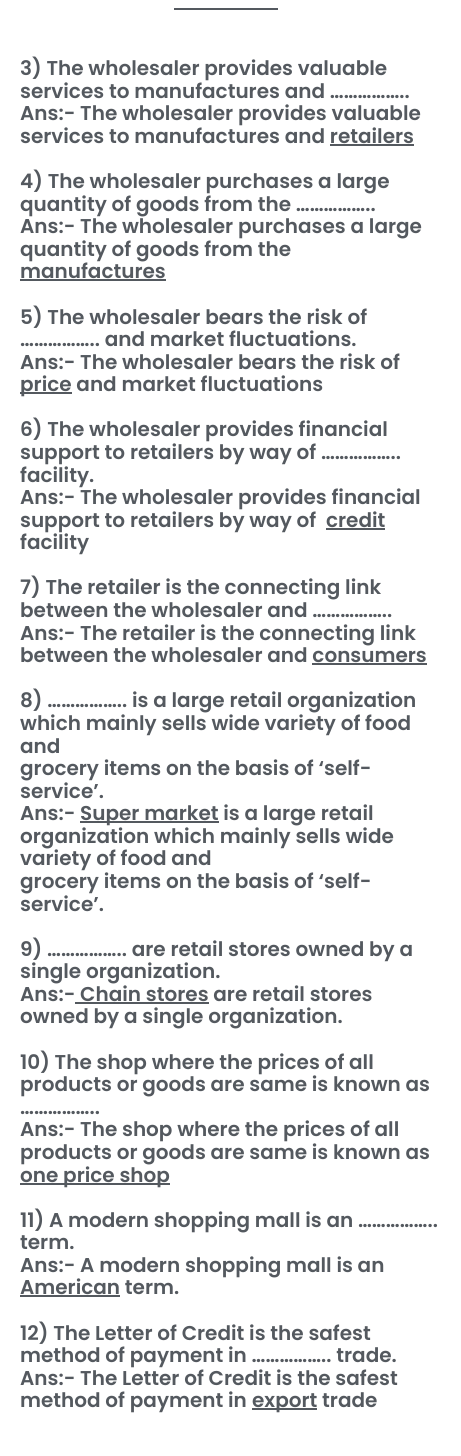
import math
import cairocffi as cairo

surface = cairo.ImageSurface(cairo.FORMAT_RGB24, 461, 1456)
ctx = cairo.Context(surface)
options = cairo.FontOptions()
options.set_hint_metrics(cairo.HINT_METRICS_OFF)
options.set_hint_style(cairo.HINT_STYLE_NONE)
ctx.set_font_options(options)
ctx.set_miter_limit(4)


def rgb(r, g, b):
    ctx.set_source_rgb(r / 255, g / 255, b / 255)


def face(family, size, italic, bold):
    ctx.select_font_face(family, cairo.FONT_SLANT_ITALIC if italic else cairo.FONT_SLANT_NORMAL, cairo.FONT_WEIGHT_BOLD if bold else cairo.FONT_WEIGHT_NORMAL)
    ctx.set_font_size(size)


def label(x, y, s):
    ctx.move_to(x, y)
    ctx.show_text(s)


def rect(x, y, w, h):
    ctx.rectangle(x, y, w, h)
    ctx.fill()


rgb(255, 255, 255)
ctx.paint()
rgb(84, 89, 95)
rect(174, 8, 104, 2)
face('Poppins SemiBold', 20, 0, 0)
label(20, 75, '3) The wholesaler provides valuable')
label(20, 98, 'services to manufactures and ……………..')
label(20, 120, 'Ans:- The wholesaler provides valuable')
label(20, 143, 'services to manufactures and retailers')
rect(330, 144, 84, 2)
label(20, 188, '4) The wholesaler purchases a large')
label(20, 211, 'quantity of goods from the ……………..')
label(20, 233, 'Ans:- The wholesaler purchases a large')
label(20, 256, 'quantity of goods from the')
label(20, 278, 'manufactures')
rect(20, 279, 146, 2)
label(20, 324, '5) The wholesaler bears the risk of')
label(20, 346, '…………….. and market fluctuations.')
label(20, 369, 'Ans:- The wholesaler bears the risk of')
rect(20, 392, 52, 2)
label(20, 391, 'price and market fluctuations')
label(20, 436, '6) The wholesaler provides financial')
label(20, 459, 'support to retailers by way of ……………..')
label(20, 482, 'facility.')
label(20, 504, 'Ans:- The wholesaler provides financial')
label(20, 527, 'support to retailers by way of')
label(326, 527, 'credit')
rect(326, 528, 59, 2)
label(20, 549, 'facility')
label(20, 594, '7) The retailer is the connecting link')
label(20, 617, 'between the wholesaler and ……………..')
label(20, 640, 'Ans:- The retailer is the connecting link')
label(20, 662, 'between the wholesaler and consumers')
rect(312, 663, 115, 2)
label(20, 707, '8) …………….. is a large retail organization')
label(20, 730, 'which mainly sells wide variety of food')
label(20, 753, 'and')
label(20, 775, 'grocery items on the basis of ‘self-')
label(20, 798, 'service’.')
label(20, 820, 'Ans:-')
rect(80, 821, 139, 2)
label(80, 820, 'Super market is a large retail')
label(20, 843, 'organization which mainly sells wide')
label(20, 865, 'variety of food and')
label(20, 888, 'grocery items on the basis of ‘self-')
label(20, 911, 'service’.')
label(20, 956, '9) …………….. are retail stores owned by a')
label(20, 978, 'single organization.')
label(20, 1001, 'Ans:- Chain stores are retail stores')
rect(75, 1002, 134, 2)
label(20, 1023, 'owned by a single organization.')
label(20, 1069, '10) The shop where the prices of all')
label(20, 1091, 'products or goods are same is known as')
label(20, 1114, '……………..')
label(20, 1136, 'Ans:- The shop where the prices of all')
label(20, 1159, 'products or goods are same is known as')
rect(20, 1183, 150, 2)
label(20, 1182, 'one price shop')
label(20, 1227, '11) A modern shopping mall is an ……………..')
label(20, 1249, 'term.')
label(20, 1272, 'Ans:- A modern shopping mall is an')
label(20, 1294, 'American term.')
rect(20, 1295, 100, 2)
label(20, 1340, '12) The Letter of Credit is the safest')
label(20, 1362, 'method of payment in …………….. trade.')
label(20, 1385, 'Ans:- The Letter of Credit is the safest')
label(20, 1407, 'method of payment in')
rect(252, 1408, 65, 2)
label(252, 1407, 'export trade')
surface.write_to_png('render.png')
